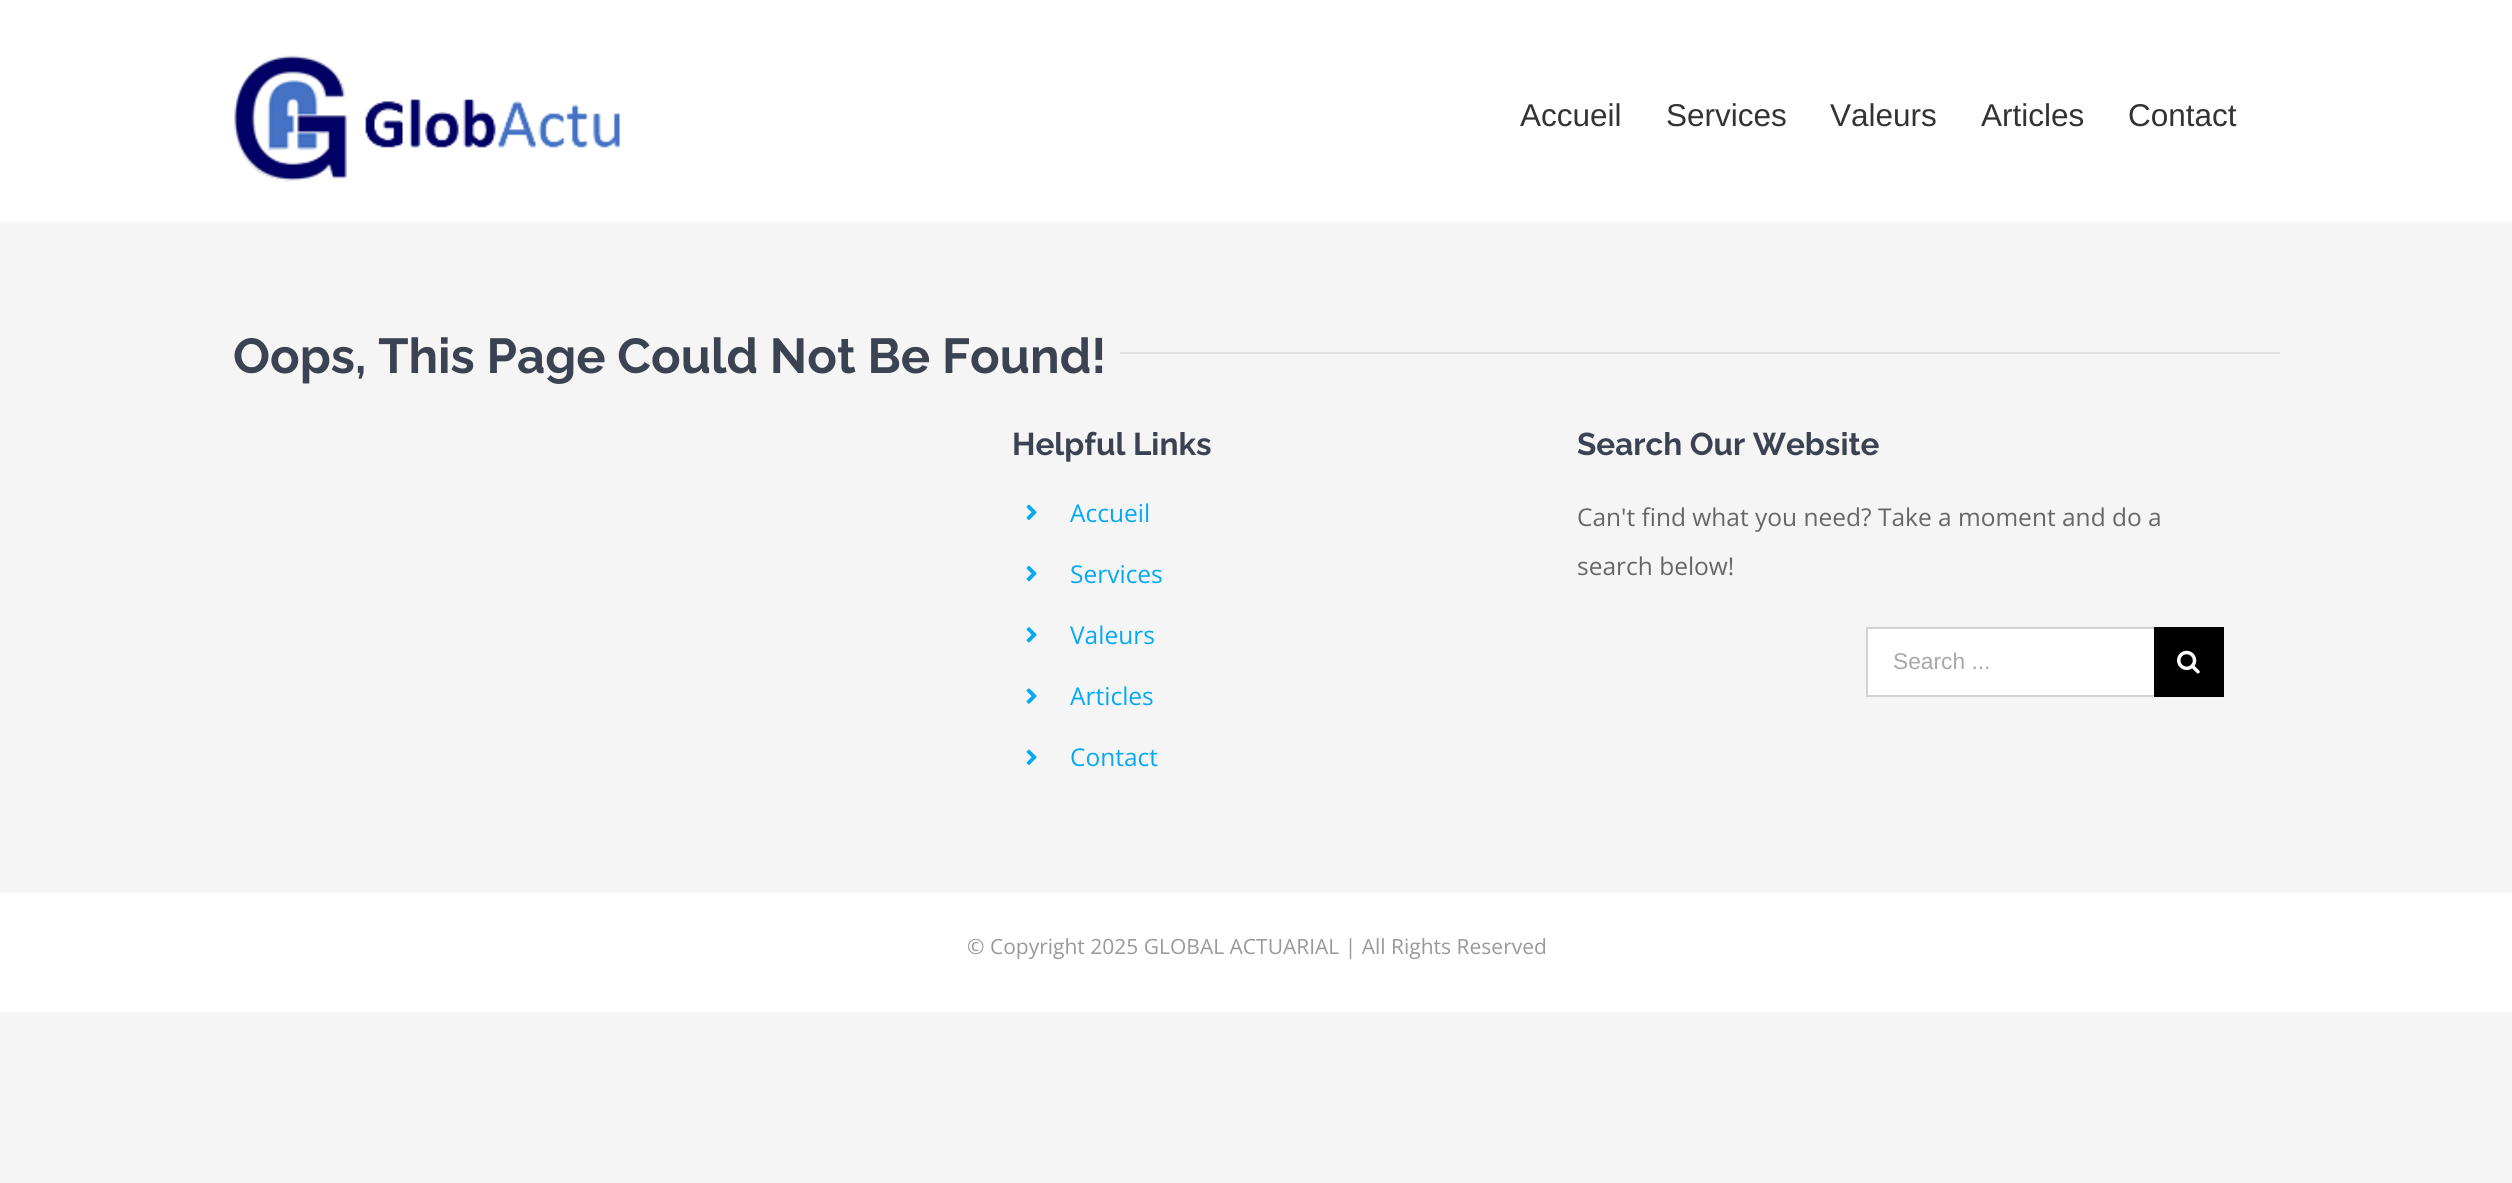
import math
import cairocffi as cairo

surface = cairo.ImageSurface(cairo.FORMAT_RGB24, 2512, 1183)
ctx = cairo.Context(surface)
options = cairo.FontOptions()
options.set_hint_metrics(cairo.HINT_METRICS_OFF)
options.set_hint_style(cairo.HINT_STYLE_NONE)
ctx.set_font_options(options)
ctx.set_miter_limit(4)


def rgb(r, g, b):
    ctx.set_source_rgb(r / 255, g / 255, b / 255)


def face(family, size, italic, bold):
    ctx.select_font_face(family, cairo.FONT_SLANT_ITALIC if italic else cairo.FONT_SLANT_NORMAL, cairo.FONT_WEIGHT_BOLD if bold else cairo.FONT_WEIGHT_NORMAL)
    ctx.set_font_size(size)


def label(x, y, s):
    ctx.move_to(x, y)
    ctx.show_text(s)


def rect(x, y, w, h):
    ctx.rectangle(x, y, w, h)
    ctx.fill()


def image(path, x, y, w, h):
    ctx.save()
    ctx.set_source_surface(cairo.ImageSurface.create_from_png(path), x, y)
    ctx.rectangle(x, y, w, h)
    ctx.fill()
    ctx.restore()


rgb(245, 245, 245)
ctx.paint()
rgb(255, 255, 255)
rect(0, 0, 2512, 222)
image('image0.png', 234, 55, 386, 127)
face('Liberation Sans', 31.5, 0, 0)
rgb(51, 51, 51)
label(1520, 126, 'Accueil')
label(1666, 126, 'Services')
label(1830, 126, 'Valeurs')
label(1981, 126, 'Articles')
label(2128, 126, 'Contact')
face('Raleway Thin', 49, 0, 0)
rgb(59, 66, 81)
label(233, 373, 'Oops, This Page Could Not Be Found!')
rgb(224, 222, 222)
rect(1120, 352, 1160, 2)
face('Raleway Thin', 31.5, 0, 0)
rgb(59, 66, 81)
label(1012, 455, 'Helpful Links')
image('image1.png', 1026, 504, 11, 16)
face('Open Sans', 24.5, 0, 0)
rgb(3, 169, 244)
label(1070, 522, 'Accueil')
image('image2.png', 1026, 565, 11, 17)
label(1070, 583, 'Services')
image('image3.png', 1026, 627, 11, 16)
label(1070, 644, 'Valeurs')
image('image4.png', 1026, 688, 11, 16)
label(1070, 705, 'Articles')
image('image1.png', 1026, 749, 11, 16)
label(1070, 766, 'Contact')
face('Raleway Thin', 31.5, 0, 0)
rgb(59, 66, 81)
label(1577, 455, 'Search Our Website')
face('Open Sans', 24.5, 0, 0)
rgb(102, 102, 102)
label(1577, 526, 'Can\'t find what you need? Take a moment and do a')
label(1577, 575, 'search below!')
rgb(255, 255, 255)
rect(1868, 629, 286, 66)
rgb(210, 210, 210)
rect(1866, 627, 288, 2)
rect(1866, 695, 288, 2)
rect(1866, 627, 2, 70)
face('Liberation Sans', 22.75, 0, 0)
rgb(170, 169, 169)
label(1893, 669, 'Search ...')
rgb(0, 0, 0)
rect(2154, 627, 70, 70)
image('image5.png', 2177, 650, 23, 24)
rgb(255, 255, 255)
rect(0, 893, 2512, 119)
face('Open Sans', 21, 0, 0)
rgb(153, 153, 153)
label(967, 954, '© Copyright 2025 GLOBAL ACTUARIAL | All Rights Reserved')
surface.write_to_png('render.png')
